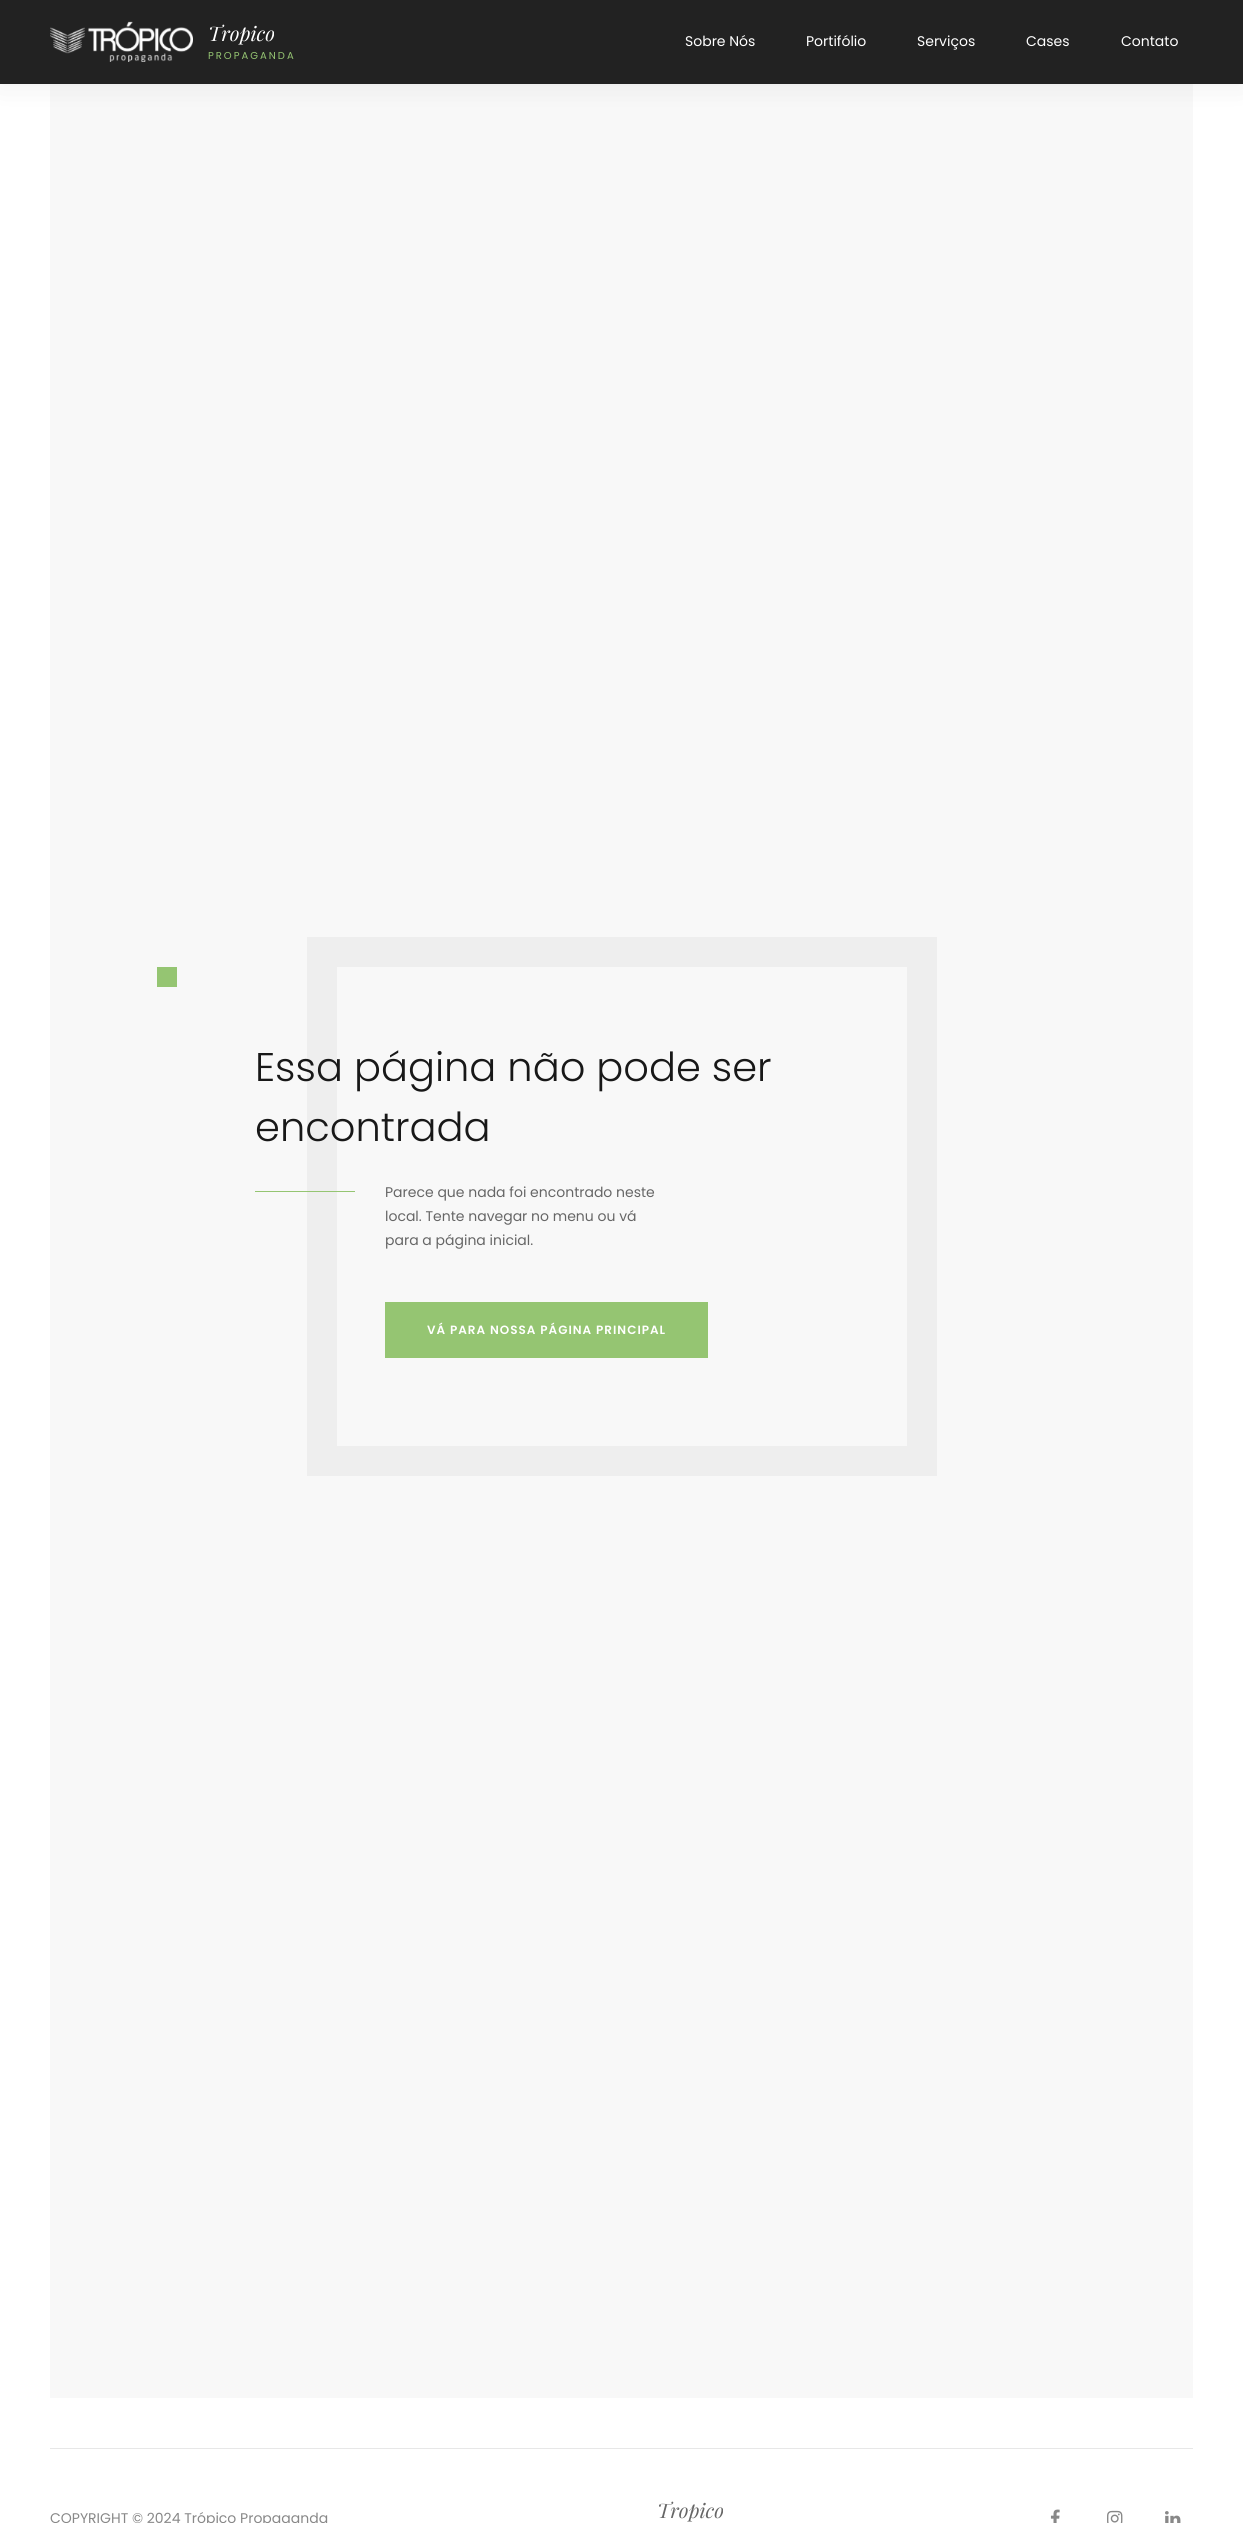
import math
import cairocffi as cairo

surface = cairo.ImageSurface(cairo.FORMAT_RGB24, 1243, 2523)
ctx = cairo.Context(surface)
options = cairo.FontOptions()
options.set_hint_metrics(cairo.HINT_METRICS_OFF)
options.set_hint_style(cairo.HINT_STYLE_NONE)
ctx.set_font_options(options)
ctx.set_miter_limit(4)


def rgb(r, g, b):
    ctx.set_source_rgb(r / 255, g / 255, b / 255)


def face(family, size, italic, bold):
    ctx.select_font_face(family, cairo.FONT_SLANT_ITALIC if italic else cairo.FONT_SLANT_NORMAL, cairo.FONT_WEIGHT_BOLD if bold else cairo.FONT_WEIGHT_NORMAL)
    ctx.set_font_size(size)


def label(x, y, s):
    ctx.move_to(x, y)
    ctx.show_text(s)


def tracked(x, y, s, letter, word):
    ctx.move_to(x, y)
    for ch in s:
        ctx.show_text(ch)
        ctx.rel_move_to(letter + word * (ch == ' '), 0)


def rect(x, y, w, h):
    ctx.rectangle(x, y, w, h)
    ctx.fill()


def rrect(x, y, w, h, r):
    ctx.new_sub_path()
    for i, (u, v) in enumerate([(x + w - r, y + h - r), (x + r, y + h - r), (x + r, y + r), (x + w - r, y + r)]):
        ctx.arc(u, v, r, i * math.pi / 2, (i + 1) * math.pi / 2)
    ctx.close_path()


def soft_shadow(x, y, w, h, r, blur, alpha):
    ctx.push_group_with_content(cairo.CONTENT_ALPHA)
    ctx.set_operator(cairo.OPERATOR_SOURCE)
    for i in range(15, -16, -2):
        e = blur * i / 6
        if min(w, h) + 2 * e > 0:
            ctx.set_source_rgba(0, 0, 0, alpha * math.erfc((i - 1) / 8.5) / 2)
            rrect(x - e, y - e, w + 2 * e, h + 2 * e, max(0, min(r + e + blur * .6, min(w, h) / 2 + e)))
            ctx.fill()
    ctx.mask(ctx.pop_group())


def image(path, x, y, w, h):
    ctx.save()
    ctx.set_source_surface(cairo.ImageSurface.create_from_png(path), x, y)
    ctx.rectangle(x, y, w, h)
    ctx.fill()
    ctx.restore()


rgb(255, 255, 255)
ctx.paint()
rgb(248, 248, 248)
rect(50, 84, 1143, 2314)
rgb(24, 24, 24)
soft_shadow(0, 0, 1243, 84, 0, 15, 0.08)
rgb(34, 34, 34)
rect(0, 0, 1243, 84)
image('image0.png', 50, 21, 143, 41)
face('Playfair Display', 20, 1, 0)
rgb(255, 255, 255)
label(208, 41, 'Tropico')
face('Poppins', 10, 0, 0)
rgb(149, 197, 114)
tracked(208, 59, 'PROPAGANDA', 2, 0)
face('Poppins', 14, 0, 0)
rgb(255, 255, 255)
label(685, 46, 'Sobre Nós')
label(806, 46, 'Portifólio')
label(917, 46, 'Serviços')
label(1026, 46, 'Cases')
label(1121, 46, 'Contato')
rgb(149, 197, 114)
rect(157, 967, 20, 20)
ctx.rectangle(322, 952, 600, 509)
rgb(238, 238, 238)
ctx.set_line_width(30)
ctx.stroke()
face('Poppins Light', 40, 0, 0)
rgb(24, 24, 24)
label(255, 1081, 'Essa página não pode ser')
label(255, 1141, 'encontrada')
rgb(149, 197, 114)
rect(255, 1191, 100, 1)
face('Poppins', 14, 0, 0)
rgb(102, 102, 102)
label(385, 1197, 'Parece que nada foi encontrado neste')
label(385, 1221, 'local. Tente navegar no menu ou vá')
label(385, 1245, 'para a página inicial.')
rgb(149, 197, 114)
rect(385, 1302, 323, 56)
face('Poppins SemiBold', 12, 0, 0)
rgb(255, 255, 255)
tracked(427, 1334, 'VÁ PARA NOSSA PÁGINA PRINCIPAL', 1, 0)
rgb(231, 231, 231)
rect(50, 2448, 1143, 1)
face('Poppins', 14, 0, 0)
rgb(136, 136, 136)
label(50, 2523, 'COPYRIGHT © 2024 Trópico Propaganda')
face('Playfair Display', 20, 1, 0)
rgb(102, 102, 102)
label(657, 2518, 'Tropico')
image('image1.png', 1050, 2509, 10, 14)
image('image2.png', 1107, 2510, 16, 13)
image('image3.png', 1165, 2511, 16, 12)
surface.write_to_png('render.png')
